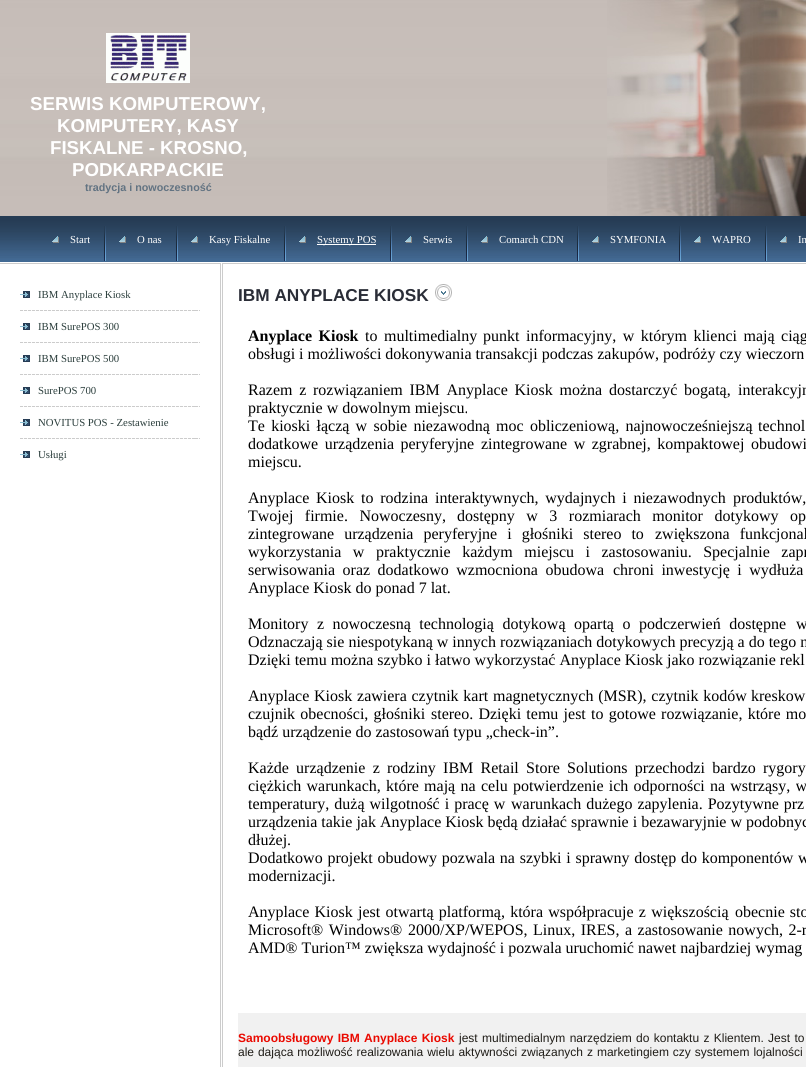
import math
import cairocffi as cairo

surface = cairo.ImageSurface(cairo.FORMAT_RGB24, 806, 1067)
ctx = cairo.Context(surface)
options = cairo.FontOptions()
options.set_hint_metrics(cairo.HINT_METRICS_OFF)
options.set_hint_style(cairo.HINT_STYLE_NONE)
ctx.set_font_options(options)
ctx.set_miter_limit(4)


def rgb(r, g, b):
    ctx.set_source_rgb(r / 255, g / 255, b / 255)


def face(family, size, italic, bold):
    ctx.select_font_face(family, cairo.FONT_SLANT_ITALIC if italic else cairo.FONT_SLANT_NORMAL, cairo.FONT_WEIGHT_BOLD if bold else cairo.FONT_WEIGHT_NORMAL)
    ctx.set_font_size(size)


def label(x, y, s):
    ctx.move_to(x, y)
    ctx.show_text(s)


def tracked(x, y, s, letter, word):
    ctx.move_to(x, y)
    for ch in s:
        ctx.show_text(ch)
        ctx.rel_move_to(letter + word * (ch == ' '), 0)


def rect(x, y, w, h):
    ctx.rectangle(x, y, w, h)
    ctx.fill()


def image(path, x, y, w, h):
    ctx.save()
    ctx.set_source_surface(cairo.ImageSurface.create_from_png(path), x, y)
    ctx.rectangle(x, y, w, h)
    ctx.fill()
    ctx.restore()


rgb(255, 255, 255)
ctx.paint()
image('image0.png', 0, 0, 607, 216)
image('image1.png', 106, 33, 84, 50)
face('Liberation Sans', 18.7, 0, 1)
rgb(255, 255, 255)
label(30, 110, 'SERWIS KOMPUTEROWY,')
label(57, 132, 'KOMPUTERY, KASY')
label(50, 154, 'FISKALNE - KROSNO,')
label(72, 176, 'PODKARPACKIE')
face('Liberation Sans', 10.75, 0, 1)
rgb(98, 115, 130)
label(85, 191, 'tradycja i nowoczesność')
image('image2.png', 607, 0, 199, 216)
image('image3.png', 0, 216, 806, 46)
image('image4.png', 52, 236, 7, 7)
face('Liberation Serif', 10.75, 0, 0)
rgb(255, 255, 255)
label(70, 243, 'Start')
image('image5.png', 104, 226, 2, 35)
image('image4.png', 119, 236, 7, 7)
label(137, 243, 'O nas')
image('image5.png', 176, 226, 2, 35)
image('image4.png', 191, 236, 7, 7)
label(209, 243, 'Kasy Fiskalne')
image('image5.png', 284, 226, 2, 35)
image('image4.png', 299, 236, 7, 7)
rect(317, 244, 59, 1)
label(317, 243, 'Systemy POS')
image('image5.png', 390, 226, 2, 35)
image('image4.png', 405, 236, 7, 7)
label(423, 243, 'Serwis')
image('image5.png', 466, 226, 2, 35)
image('image4.png', 481, 236, 7, 7)
label(499, 243, 'Comarch CDN')
image('image5.png', 577, 226, 2, 35)
image('image4.png', 592, 236, 7, 7)
label(610, 243, 'SYMFONIA')
image('image5.png', 679, 226, 2, 35)
image('image4.png', 694, 236, 7, 7)
label(712, 243, 'WAPRO')
image('image5.png', 765, 226, 2, 35)
image('image4.png', 780, 236, 7, 7)
label(798, 243, 'In')
rgb(204, 204, 204)
rect(0, 263, 221, 1)
rect(220, 263, 1, 804)
image('image6.png', 20, 291, 10, 7)
rgb(43, 62, 60)
label(38, 298, 'IBM Anyplace Kiosk')
image('image7.png', 20, 310, 180, 1)
image('image6.png', 20, 323, 10, 7)
label(38, 330, 'IBM SurePOS 300')
image('image7.png', 20, 342, 180, 1)
image('image6.png', 20, 355, 10, 7)
label(38, 362, 'IBM SurePOS 500')
image('image7.png', 20, 374, 180, 1)
image('image6.png', 20, 387, 10, 7)
label(38, 394, 'SurePOS 700')
image('image7.png', 20, 406, 180, 1)
image('image6.png', 20, 419, 10, 7)
label(38, 426, 'NOVITUS POS - Zestawienie')
image('image7.png', 20, 438, 180, 1)
image('image6.png', 20, 451, 10, 7)
label(38, 458, 'Usługi')
rgb(204, 204, 204)
rect(222, 263, 584, 1)
rect(222, 263, 1, 804)
face('Liberation Sans', 17.25, 0, 1)
rgb(42, 45, 55)
label(238, 301, 'IBM ANYPLACE KIOSK')
image('image8.png', 435, 284, 17, 17)
face('Liberation Serif', 16, 0, 1)
rgb(0, 0, 0)
tracked(248, 341, 'Anyplace Kiosk', 0, 2.5)
face('Liberation Serif', 16, 0, 0)
tracked(365, 341, 'to multimedialny', 0, 2.5)
tracked(483, 341, 'punkt informacyjny, w którym klienci mają ciąg', 0, 2.5)
label(248, 359, 'obsługi i możliwości dokonywania transakcji podczas zakupów, podróży czy wieczorn')
tracked(248, 395, 'Razem z rozwiązaniem IBM Anyplace Kiosk można dostarczyć bogatą,', 0, 2.75)
tracked(738, 395, 'interakcyjn', 0, 2.75)
label(248, 413, 'praktycznie w dowolnym miejscu.')
tracked(248, 431, 'Te kioski łączą w sobie niezawodną moc obliczeniową, najnowocześniejszą', 0, 2.25)
tracked(758, 431, 'technol', 0, 2.25)
tracked(248, 449, 'dodatkowe urządzenia peryferyjne', 0, 2.5)
tracked(481, 449, 'zintegrowane w zgrabnej, kompaktowej obudowi', 0, 2.5)
label(248, 467, 'miejscu.')
tracked(248, 503, 'Anyplace Kiosk to rodzina interaktywnych, wydajnych i niezawodnych', 0, 2.75)
tracked(733, 503, 'produktów,', 0, 2.75)
tracked(248, 521, 'Twojej firmie. Nowoczesny,', 0, 7.5)
tracked(457, 521, 'dostępny w 3 rozmiarach monitor dotykowy op', 0, 7.5)
tracked(248, 539, 'zintegrowane urządzenia peryferyjne i głośniki stereo to', 0, 6)
tracked(655, 539, 'zwiększona funkcjonal', 0, 6)
tracked(248, 557, 'wykorzystania w', 0, 7.5)
tracked(376, 557, 'praktycznie każdym miejscu i zastosowaniu. Specjalnie zapr', 0, 7.5)
tracked(248, 575, 'serwisowania oraz dodatkowo wzmocniona obudowa', 0, 3.5)
tracked(613, 575, 'chroni inwestycję i wydłuża', 0, 3.5)
label(248, 593, 'Anyplace Kiosk do ponad 7 lat.')
tracked(248, 629, 'Monitory z nowoczesną technologią dotykową opartą o podczerwień dostępne', 0, 4.5)
tracked(796, 629, 'w', 0, 4.5)
label(248, 647, 'Odznaczają sie niespotykaną w innych rozwiązaniach dotykowych precyzją a do tego n')
label(248, 665, 'Dzięki temu można szybko i łatwo wykorzystać Anyplace Kiosk jako rozwiązanie rekl')
tracked(248, 701, 'Anyplace Kiosk zawiera czytnik kart magnetycznych (MSR), czytnik kodów', 0, 0.75)
tracked(751, 701, 'kreskow', 0, 0.75)
tracked(248, 719, 'czujnik obecności, głośniki', 0, 1.25)
tracked(431, 719, 'stereo. Dzięki temu jest to gotowe rozwiązanie, które mo', 0, 1.25)
label(248, 737, 'bądź urządzenie do zastosowań typu „check-in”.')
tracked(248, 773, 'Każde urządzenie z rodziny IBM Retail Store Solutions przechodzi bardzo', 0, 3.25)
tracked(763, 773, 'rygory', 0, 3)
tracked(248, 791, 'ciężkich warunkach, które mają na', 0, 1.25)
tracked(481, 791, 'celu potwierdzenie ich odporności na wstrząsy, w', 0, 1.25)
tracked(248, 809, 'temperatury, dużą wilgotność i pracę w', 0, 1)
tracked(511, 809, 'warunkach dużego zapylenia. Pozytywne prz', 0, 1)
label(248, 827, 'urządzenia takie jak Anyplace Kiosk będą działać sprawnie i bezawaryjnie w podobnyc')
label(248, 845, 'dłużej.')
tracked(248, 863, 'Dodatkowo projekt obudowy pozwala na szybki i sprawny dostęp do komponentów w', 0, 0.75)
label(248, 881, 'modernizacji.')
tracked(248, 917, 'Anyplace Kiosk jest otwartą platformą, która współpracuje z większością', 0, 1.25)
tracked(735, 917, 'obecnie sto', 0, 1)
tracked(248, 935, 'Microsoft® Windows®', 0, 1.5)
tracked(408, 935, '2000/XP/WEPOS, Linux, IRES, a zastosowanie nowych, 2-r', 0, 1.5)
label(248, 953, 'AMD® Turion™ zwiększa wydajność i pozwala uruchomić nawet najbardziej wymag')
rgb(241, 241, 241)
rect(238, 1013, 568, 54)
face('Liberation Sans', 12, 0, 1)
rgb(234, 9, 0)
tracked(238, 1042, 'Samoobsługowy IBM Anyplace Kiosk', 0, 1)
face('Liberation Sans', 12, 0, 0)
rgb(31, 28, 23)
tracked(459, 1042, 'jest multimedialnym narzędziem do kontaktu z Klientem. Jest to', 0, 1)
tracked(238, 1056, 'ale dająca możliwość realizowania wielu aktywności związanych z marketingiem czy systemem lojalności', 0, 0.6)
surface.write_to_png('render.png')
